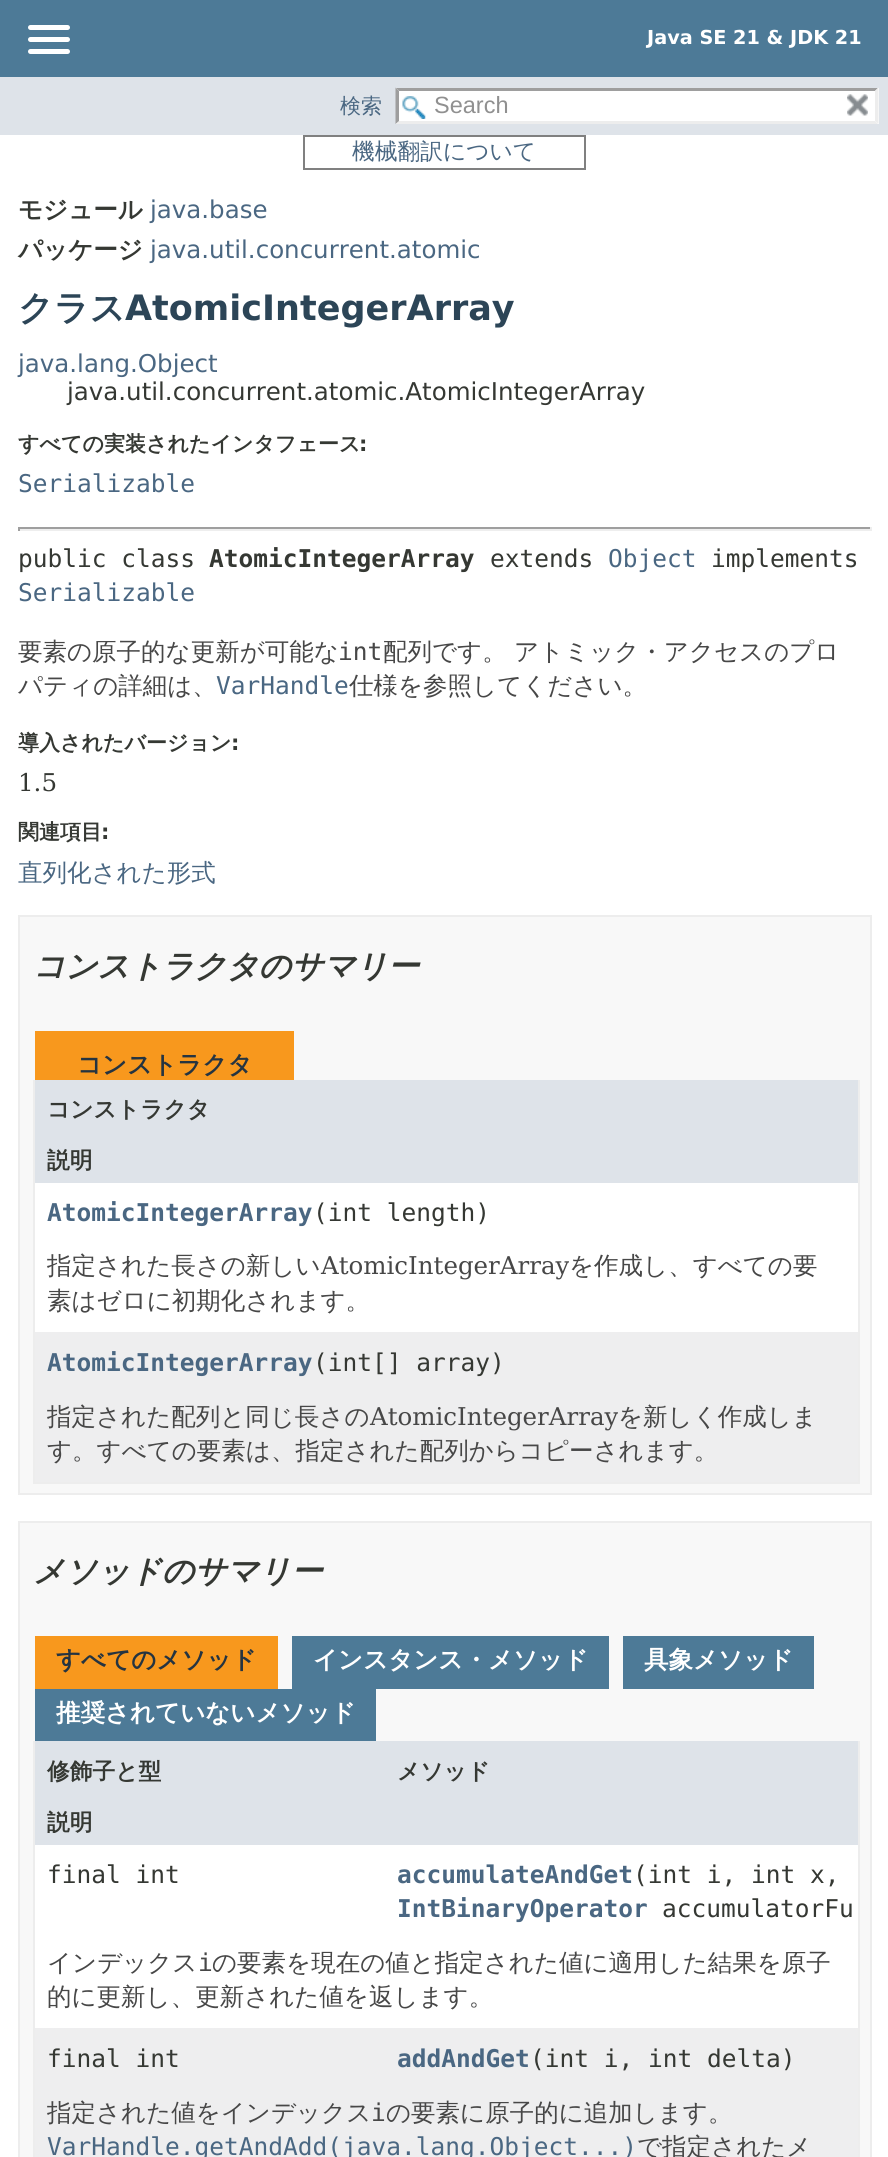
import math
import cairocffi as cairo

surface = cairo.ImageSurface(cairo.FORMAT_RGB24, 888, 2157)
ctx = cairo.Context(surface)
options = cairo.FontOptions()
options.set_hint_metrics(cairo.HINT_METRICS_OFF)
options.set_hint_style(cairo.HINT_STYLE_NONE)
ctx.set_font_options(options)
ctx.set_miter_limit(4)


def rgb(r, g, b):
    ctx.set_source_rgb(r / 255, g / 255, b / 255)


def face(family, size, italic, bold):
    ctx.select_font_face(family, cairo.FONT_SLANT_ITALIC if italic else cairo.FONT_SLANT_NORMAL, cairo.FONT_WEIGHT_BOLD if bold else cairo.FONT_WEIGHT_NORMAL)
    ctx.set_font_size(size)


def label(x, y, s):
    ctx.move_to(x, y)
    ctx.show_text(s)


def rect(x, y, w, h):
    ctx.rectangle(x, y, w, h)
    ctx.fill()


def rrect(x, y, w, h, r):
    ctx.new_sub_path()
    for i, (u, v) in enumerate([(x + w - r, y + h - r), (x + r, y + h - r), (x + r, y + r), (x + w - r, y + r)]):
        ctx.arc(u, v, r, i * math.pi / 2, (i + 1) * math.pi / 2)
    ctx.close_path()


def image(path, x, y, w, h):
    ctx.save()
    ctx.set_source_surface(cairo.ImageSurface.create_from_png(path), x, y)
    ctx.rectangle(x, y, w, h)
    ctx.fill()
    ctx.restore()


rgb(255, 255, 255)
ctx.paint()
rgb(77, 122, 151)
rect(0, 0, 888, 77)
rgb(255, 255, 255)
rrect(28, 25, 42, 5, 2.5)
ctx.fill()
rrect(28, 37, 42, 5, 2.5)
ctx.fill()
rrect(28, 49, 42, 5, 2.5)
ctx.fill()
face('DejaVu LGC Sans', 19.25, 0, 1)
label(647, 44, 'Java SE 21 & JDK 21')
rgb(222, 227, 233)
rect(0, 77, 888, 58)
face('WenQuanYi Zen Hei Medium', 21, 0, 0)
rgb(74, 103, 130)
label(340, 113, '検索')
rgb(255, 255, 255)
rect(396, 88, 483, 36)
image('image0.png', 402, 96, 24, 23)
rgb(158, 158, 158)
ctx.new_path()
ctx.move_to(396, 88)
ctx.line_to(878, 88)
ctx.line_to(875, 91)
ctx.line_to(399, 91)
ctx.close_path()
ctx.fill()
rgb(237, 237, 237)
ctx.new_path()
ctx.move_to(878.5, 87.5)
ctx.line_to(878.5, 124)
ctx.line_to(875, 121)
ctx.line_to(875, 91)
ctx.close_path()
ctx.fill()
ctx.new_path()
ctx.move_to(878, 124)
ctx.line_to(396, 124)
ctx.line_to(399, 121)
ctx.line_to(875, 121)
ctx.close_path()
ctx.fill()
rgb(158, 158, 158)
ctx.new_path()
ctx.move_to(395.5, 124)
ctx.line_to(395.5, 87.5)
ctx.line_to(399, 91)
ctx.line_to(399, 121)
ctx.close_path()
ctx.fill()
face('Liberation Sans', 23.5, 0, 0)
rgb(144, 144, 144)
label(434, 113, 'Search')
image('image1.png', 847, 94, 21, 22)
ctx.rectangle(304, 136, 281, 33)
rgb(128, 128, 128)
ctx.stroke()
face('WenQuanYi Zen Hei Medium', 22.75, 0, 0)
rgb(74, 103, 130)
label(352, 159, '機械翻訳について')
face('WenQuanYi Zen Hei', 24.5, 0, 1)
rgb(53, 56, 51)
label(18, 218, 'モジュール')
face('DejaVu LGC Sans', 24.5, 0, 0)
rgb(74, 103, 130)
label(150, 218, 'java.base')
face('WenQuanYi Zen Hei', 24.5, 0, 1)
rgb(53, 56, 51)
label(18, 258, 'パッケージ')
face('DejaVu LGC Sans', 24.5, 0, 0)
rgb(74, 103, 130)
label(150, 258, 'java.util.concurrent.atomic')
face('WenQuanYi Zen Hei', 35, 0, 1)
rgb(44, 69, 87)
label(18, 320, 'クラス')
face('DejaVu LGC Sans', 35, 0, 1)
label(125, 320, 'AtomicIntegerArray')
face('DejaVu LGC Sans', 24.5, 0, 0)
rgb(74, 103, 130)
label(18, 372, 'java.lang.Object')
rgb(53, 56, 51)
label(67, 400, 'java.util.concurrent.atomic.AtomicIntegerArray')
face('WenQuanYi Zen Hei', 21, 0, 1)
label(18, 451, 'すべての実装されたインタフェース')
face('DejaVu LGC Sans', 21, 0, 1)
label(359, 451, ':')
face('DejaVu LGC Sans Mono', 24.5, 0, 0)
rgb(74, 103, 130)
label(18, 492, 'Serializable')
rgb(159, 159, 159)
rect(18, 527, 854, 2)
rgb(238, 238, 238)
rect(870, 527, 2, 4)
rect(18, 529, 854, 2)
rgb(159, 159, 159)
rect(18, 527, 2, 4)
rgb(53, 56, 51)
label(18, 567, 'public class')
face('DejaVu LGC Sans Mono', 24.5, 0, 1)
label(209, 567, 'AtomicIntegerArray')
face('DejaVu LGC Sans Mono', 24.5, 0, 0)
label(490, 567, 'extends')
rgb(74, 103, 130)
label(608, 567, 'Object')
rgb(53, 56, 51)
label(711, 567, 'implements')
rgb(74, 103, 130)
label(18, 601, 'Serializable')
face('WenQuanYi Zen Hei Medium', 24.5, 0, 0)
rgb(71, 71, 71)
label(18, 660, '要素の原子的な更新が可能な')
face('DejaVu LGC Sans Mono', 24.5, 0, 0)
label(338, 660, 'int')
face('WenQuanYi Zen Hei Medium', 24.5, 0, 0)
label(383, 660, '配列です。')
label(514, 660, 'アトミック・アクセスのプロ')
label(18, 694, 'パティの詳細は、')
face('DejaVu LGC Sans Mono', 24.5, 0, 0)
rgb(74, 103, 130)
label(216, 694, 'VarHandle')
face('WenQuanYi Zen Hei Medium', 24.5, 0, 0)
rgb(71, 71, 71)
label(349, 694, '仕様を参照してください。')
face('WenQuanYi Zen Hei', 21, 0, 1)
rgb(53, 56, 51)
label(18, 750, '導入されたバージョン')
face('DejaVu LGC Sans', 21, 0, 1)
label(231, 750, ':')
face('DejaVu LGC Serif', 24.5, 0, 0)
label(18, 791, '1.5')
face('WenQuanYi Zen Hei', 21, 0, 1)
label(18, 839, '関連項目')
face('DejaVu LGC Sans', 21, 0, 1)
label(101, 839, ':')
face('WenQuanYi Zen Hei Medium', 24.5, 0, 0)
rgb(74, 103, 130)
label(18, 881, '直列化された形式')
rgb(248, 248, 248)
ctx.rectangle(19, 916, 852, 578)
ctx.fill_preserve()
rgb(237, 237, 237)
ctx.stroke()
face('WenQuanYi Zen Hei', 31.5, 1, 1)
rgb(53, 56, 51)
label(33, 977, 'コンストラクタのサマリー')
rgb(248, 152, 29)
rect(35, 1031, 259, 49)
face('WenQuanYi Zen Hei', 24.5, 0, 1)
rgb(37, 52, 65)
label(77, 1073, 'コンストラクタ')
rgb(237, 237, 237)
rect(858, 1080, 2, 404)
rect(33, 1482, 826, 2)
rect(33, 1080, 2, 404)
rgb(222, 227, 233)
rect(35, 1080, 823, 103)
face('WenQuanYi Zen Hei', 22.75, 0, 1)
rgb(53, 56, 51)
label(47, 1117, 'コンストラクタ')
label(47, 1168, '説明')
rgb(255, 255, 255)
rect(35, 1183, 823, 149)
face('DejaVu LGC Sans Mono', 24.5, 0, 1)
rgb(74, 103, 130)
label(47, 1221, 'AtomicIntegerArray')
face('DejaVu LGC Sans Mono', 24.5, 0, 0)
rgb(53, 56, 51)
label(313, 1221, '(int length)')
face('WenQuanYi Zen Hei Medium', 24.5, 0, 0)
rgb(71, 71, 71)
label(47, 1274, '指定された長さの新しい')
face('DejaVu LGC Serif', 24.5, 0, 0)
label(321, 1274, 'AtomicIntegerArray')
face('WenQuanYi Zen Hei Medium', 24.5, 0, 0)
label(569, 1274, 'を作成し、すべての要')
label(47, 1309, '素はゼロに初期化されます。')
rgb(238, 238, 239)
rect(35, 1332, 823, 150)
face('DejaVu LGC Sans Mono', 24.5, 0, 1)
rgb(74, 103, 130)
label(47, 1371, 'AtomicIntegerArray')
face('DejaVu LGC Sans Mono', 24.5, 0, 0)
rgb(53, 56, 51)
label(313, 1371, '(int[] array)')
face('WenQuanYi Zen Hei Medium', 24.5, 0, 0)
rgb(71, 71, 71)
label(47, 1425, '指定された配列と同じ長さの')
face('DejaVu LGC Serif', 24.5, 0, 0)
label(370, 1425, 'AtomicIntegerArray')
face('WenQuanYi Zen Hei Medium', 24.5, 0, 0)
label(618, 1425, 'を新しく作成しま')
label(47, 1459, 'す。すべての要素は、指定された配列からコピーされます。')
rgb(248, 248, 248)
ctx.rectangle(19, 1522, 852, 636)
ctx.fill_preserve()
rgb(237, 237, 237)
ctx.stroke()
face('WenQuanYi Zen Hei', 31.5, 1, 1)
rgb(53, 56, 51)
label(33, 1582, 'メソッドのサマリー')
rgb(248, 152, 29)
rect(35, 1636, 243, 53)
face('WenQuanYi Zen Hei', 24.5, 0, 1)
rgb(37, 52, 65)
label(56, 1668, 'すべてのメソッド')
rgb(77, 122, 151)
rect(292, 1636, 317, 53)
rgb(255, 255, 255)
label(313, 1668, 'インスタンス・メソッド')
rgb(77, 122, 151)
rect(623, 1636, 191, 53)
rgb(255, 255, 255)
label(644, 1668, '具象メソッド')
rgb(77, 122, 151)
rect(35, 1689, 341, 52)
rgb(255, 255, 255)
label(56, 1721, '推奨されていないメソッド')
rgb(237, 237, 237)
rect(858, 1741, 2, 416)
rect(33, 1741, 2, 416)
rgb(222, 227, 233)
rect(35, 1741, 823, 104)
face('WenQuanYi Zen Hei', 22.75, 0, 1)
rgb(53, 56, 51)
label(47, 1779, '修飾子と型')
label(397, 1779, 'メソッド')
label(47, 1830, '説明')
rgb(255, 255, 255)
rect(35, 1845, 823, 183)
face('DejaVu LGC Sans Mono', 24.5, 0, 0)
rgb(53, 56, 51)
label(47, 1883, 'final int')
face('DejaVu LGC Sans Mono', 24.5, 0, 1)
rgb(74, 103, 130)
label(397, 1883, 'accumulateAndGet')
face('DejaVu LGC Sans Mono', 24.5, 0, 0)
rgb(53, 56, 51)
label(633, 1883, '(int i, int x,')
face('DejaVu LGC Sans Mono', 24.5, 0, 1)
rgb(74, 103, 130)
label(397, 1917, 'IntBinaryOperator')
face('DejaVu LGC Sans Mono', 24.5, 0, 0)
rgb(53, 56, 51)
label(662, 1917, 'accumulatorFu')
face('WenQuanYi Zen Hei Medium', 24.5, 0, 0)
rgb(71, 71, 71)
label(47, 1971, 'インデックス')
face('DejaVu LGC Sans Mono', 24.5, 0, 0)
label(198, 1971, 'i')
face('WenQuanYi Zen Hei Medium', 24.5, 0, 0)
label(212, 1971, 'の要素を現在の値と指定された値に適用した結果を原子')
label(47, 2005, '的に更新し、更新された値を返します。')
rgb(238, 238, 239)
rect(35, 2028, 823, 129)
face('DejaVu LGC Sans Mono', 24.5, 0, 0)
rgb(53, 56, 51)
label(47, 2067, 'final int')
face('DejaVu LGC Sans Mono', 24.5, 0, 1)
rgb(74, 103, 130)
label(397, 2067, 'addAndGet')
face('DejaVu LGC Sans Mono', 24.5, 0, 0)
rgb(53, 56, 51)
label(530, 2067, '(int i, int delta)')
face('WenQuanYi Zen Hei Medium', 24.5, 0, 0)
rgb(71, 71, 71)
label(47, 2121, '指定された値をインデックス')
face('DejaVu LGC Sans Mono', 24.5, 0, 0)
label(371, 2121, 'i')
face('WenQuanYi Zen Hei Medium', 24.5, 0, 0)
label(386, 2121, 'の要素に原子的に追加します。')
face('DejaVu LGC Sans Mono', 24.5, 0, 0)
rgb(74, 103, 130)
label(47, 2155, 'VarHandle.getAndAdd(java.lang.Object...)')
face('WenQuanYi Zen Hei Medium', 24.5, 0, 0)
rgb(71, 71, 71)
label(637, 2155, 'で指定されたメ')
surface.write_to_png('render.png')
